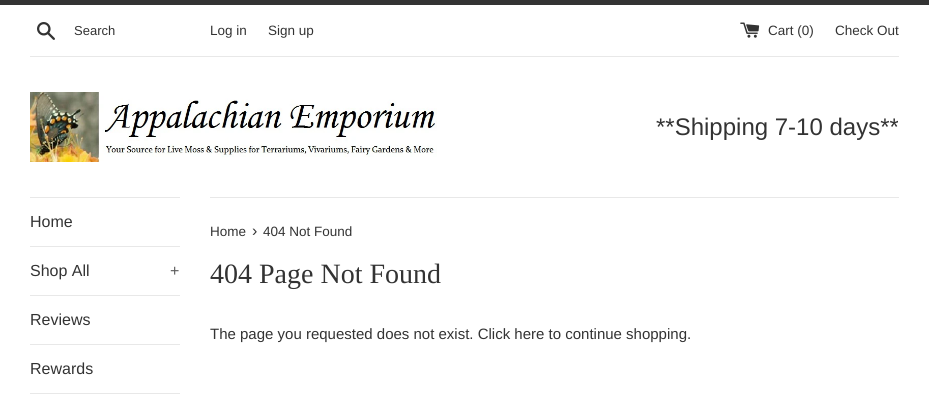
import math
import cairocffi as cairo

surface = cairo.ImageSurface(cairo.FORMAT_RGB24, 929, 397)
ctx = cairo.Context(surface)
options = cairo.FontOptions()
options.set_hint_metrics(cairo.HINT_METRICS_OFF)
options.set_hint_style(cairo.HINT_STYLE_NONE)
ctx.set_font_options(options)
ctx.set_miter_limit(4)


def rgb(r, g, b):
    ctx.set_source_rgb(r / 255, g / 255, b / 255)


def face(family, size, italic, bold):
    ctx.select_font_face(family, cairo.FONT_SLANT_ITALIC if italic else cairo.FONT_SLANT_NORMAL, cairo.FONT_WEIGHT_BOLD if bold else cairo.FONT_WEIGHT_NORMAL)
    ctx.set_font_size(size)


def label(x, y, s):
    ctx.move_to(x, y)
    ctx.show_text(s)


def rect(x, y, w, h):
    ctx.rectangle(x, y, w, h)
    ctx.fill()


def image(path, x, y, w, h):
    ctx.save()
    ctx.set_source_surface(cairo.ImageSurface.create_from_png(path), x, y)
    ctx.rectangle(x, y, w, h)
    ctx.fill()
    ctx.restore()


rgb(255, 255, 255)
ctx.paint()
rgb(51, 51, 51)
rect(0, 0, 929, 5)
image('image0.png', 37, 22, 18, 18)
face('Liberation Sans', 13, 0, 0)
label(74, 35, 'Search')
face('Liberation Sans', 13.5, 0, 0)
label(210, 35, 'Log in')
label(268, 35, 'Sign up')
image('image1.png', 740, 22, 20, 16)
label(768, 35, 'Cart (0)')
label(835, 35, 'Check Out')
rgb(232, 232, 232)
rect(30, 56, 869, 1)
image('image2.png', 30, 92, 407, 70)
face('Liberation Sans', 24, 0, 0)
rgb(51, 51, 51)
label(656, 135, '**Shipping 7-10 days**')
rgb(232, 232, 232)
rect(30, 197, 150, 1)
rect(30, 246, 150, 1)
face('Liberation Sans', 16, 0, 0)
rgb(51, 51, 51)
label(30, 227, 'Home')
rgb(232, 232, 232)
rect(30, 295, 150, 1)
rgb(51, 51, 51)
label(30, 276, 'Shop All')
rgb(92, 92, 92)
label(170, 276, '+')
rgb(232, 232, 232)
rect(30, 344, 150, 1)
rgb(51, 51, 51)
label(30, 325, 'Reviews')
rgb(232, 232, 232)
rect(30, 393, 150, 1)
rgb(51, 51, 51)
label(30, 374, 'Rewards')
rgb(232, 232, 232)
rect(210, 197, 689, 1)
face('Liberation Sans', 13.5, 0, 0)
rgb(51, 51, 51)
label(210, 236, 'Home')
face('Liberation Sans', 16, 0, 0)
label(252, 236, '›')
face('Liberation Sans', 13.5, 0, 0)
label(263, 236, '404 Not Found')
face('Liberation Serif', 28, 0, 0)
label(210, 283, '404 Page Not Found')
face('Liberation Sans', 15, 0, 0)
label(210, 339, 'The page you requested does not exist. Click here to continue shopping.')
surface.write_to_png('render.png')
